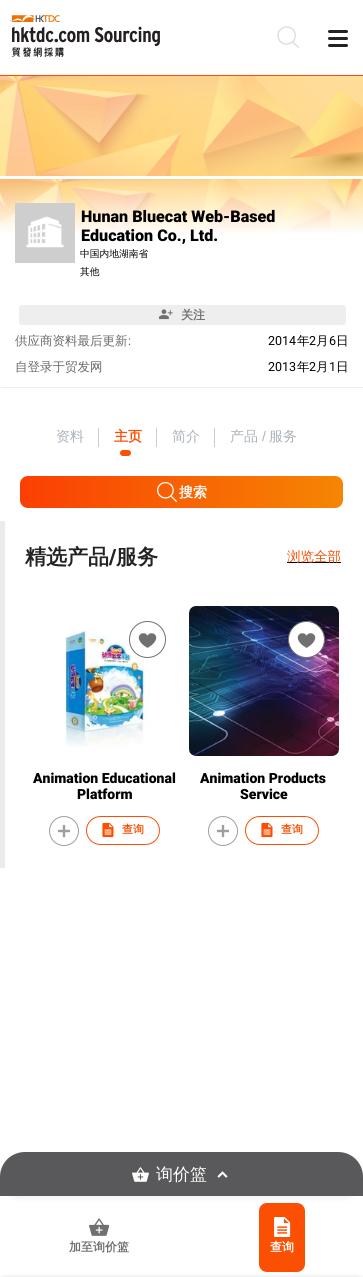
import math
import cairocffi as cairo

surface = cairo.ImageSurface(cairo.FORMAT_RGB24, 363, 1277)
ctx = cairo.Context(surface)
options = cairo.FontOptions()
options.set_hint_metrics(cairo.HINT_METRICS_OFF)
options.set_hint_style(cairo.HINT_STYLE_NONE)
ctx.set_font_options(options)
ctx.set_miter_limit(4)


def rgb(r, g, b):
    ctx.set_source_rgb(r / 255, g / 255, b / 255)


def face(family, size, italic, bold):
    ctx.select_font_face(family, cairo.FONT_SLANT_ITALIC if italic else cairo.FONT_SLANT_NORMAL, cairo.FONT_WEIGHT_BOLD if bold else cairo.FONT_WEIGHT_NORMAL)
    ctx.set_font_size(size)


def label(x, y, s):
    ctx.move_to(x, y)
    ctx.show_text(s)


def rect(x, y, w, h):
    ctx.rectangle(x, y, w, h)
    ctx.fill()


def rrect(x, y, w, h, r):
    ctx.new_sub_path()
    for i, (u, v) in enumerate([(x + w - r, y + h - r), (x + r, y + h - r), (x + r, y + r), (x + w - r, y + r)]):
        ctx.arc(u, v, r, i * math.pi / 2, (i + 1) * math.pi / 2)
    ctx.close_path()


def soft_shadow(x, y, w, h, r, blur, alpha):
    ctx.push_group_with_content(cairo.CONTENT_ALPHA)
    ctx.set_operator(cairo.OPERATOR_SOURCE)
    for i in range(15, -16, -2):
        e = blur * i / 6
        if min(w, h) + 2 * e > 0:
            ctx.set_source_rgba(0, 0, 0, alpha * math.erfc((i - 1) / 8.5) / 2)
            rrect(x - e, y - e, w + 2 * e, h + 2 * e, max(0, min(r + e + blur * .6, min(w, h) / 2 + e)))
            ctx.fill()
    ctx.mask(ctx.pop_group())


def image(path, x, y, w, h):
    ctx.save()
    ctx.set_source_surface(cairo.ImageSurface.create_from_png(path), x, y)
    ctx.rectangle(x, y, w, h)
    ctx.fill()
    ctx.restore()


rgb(255, 255, 255)
ctx.paint()
rgb(251, 80, 4)
rect(0, 75, 363, 1)
image('image0.png', 10, 15, 150, 42)
image('image1.png', 277, 26, 22, 23)
rgb(34, 34, 34)
rrect(328, 30, 20, 3, 1.5)
ctx.fill()
rrect(328, 37, 20, 3, 1.5)
ctx.fill()
rrect(328, 44, 20, 3, 1.5)
ctx.fill()
image('image2.png', 0, 76, 363, 100)
image('image3.png', 0, 179, 363, 54)
rgb(239, 239, 239)
rect(1, 387, 362, 1)
image('image4.png', 15, 203, 60, 60)
face('Roboto Black', 16.1, 0, 0)
rgb(0, 0, 0)
label(81, 222, 'Hunan Bluecat Web-Based')
label(81, 241, 'Education Co., Ltd.')
face('WenQuanYi Zen Hei Medium', 9.75, 0, 0)
label(80, 257, '中国内地湖南省')
label(80, 275, '其他')
rgb(238, 238, 238)
rrect(19, 305, 327, 20, 3)
ctx.fill()
image('image5.png', 159, 309, 14, 11)
face('WenQuanYi Zen Hei', 12, 0, 1)
rgb(112, 112, 112)
label(181, 319, '关注')
face('WenQuanYi Zen Hei Medium', 12.5, 0, 0)
rgb(105, 105, 105)
label(15, 345, '供应商资料最后更新')
face('Roboto', 12.5, 0, 0)
label(128, 345, ':')
rgb(0, 0, 0)
label(268, 345, '2014')
face('WenQuanYi Zen Hei Medium', 12.5, 0, 0)
label(297, 345, '年')
face('Roboto', 12.5, 0, 0)
label(309, 345, '2')
face('WenQuanYi Zen Hei Medium', 12.5, 0, 0)
label(316, 345, '月')
face('Roboto', 12.5, 0, 0)
label(329, 345, '6')
face('WenQuanYi Zen Hei Medium', 12.5, 0, 0)
label(336, 345, '日')
rgb(105, 105, 105)
label(15, 371, '自登录于贸发网')
face('Roboto', 12.5, 0, 0)
rgb(0, 0, 0)
label(268, 371, '2013')
face('WenQuanYi Zen Hei Medium', 12.5, 0, 0)
label(297, 371, '年')
face('Roboto', 12.5, 0, 0)
label(309, 371, '2')
face('WenQuanYi Zen Hei Medium', 12.5, 0, 0)
label(316, 371, '月')
face('Roboto', 12.5, 0, 0)
label(329, 371, '1')
face('WenQuanYi Zen Hei Medium', 12.5, 0, 0)
label(336, 371, '日')
face('WenQuanYi Zen Hei Medium', 14, 0, 0)
rgb(171, 178, 185)
label(56, 441, '资料')
rgb(204, 204, 204)
rect(98, 428, 1, 19)
face('WenQuanYi Zen Hei', 14, 0, 1)
rgb(251, 80, 4)
label(114, 441, '主页')
rrect(120, 450, 11, 6, 3)
ctx.fill()
rgb(204, 204, 204)
rect(156, 428, 1, 19)
face('WenQuanYi Zen Hei Medium', 14, 0, 0)
rgb(171, 178, 185)
label(172, 441, '简介')
rgb(204, 204, 204)
rect(214, 428, 1, 19)
rgb(171, 178, 185)
label(230, 441, '产品')
face('Liberation Sans', 14, 0, 0)
label(262, 441, '/')
face('WenQuanYi Zen Hei Medium', 14, 0, 0)
label(269, 441, '服务')
gradient = cairo.LinearGradient(343, 492, 20, 492)
gradient.add_color_stop_rgba(0, 0.961, 0.525, 0.012, 1)
gradient.add_color_stop_rgba(1, 0.984, 0.247, 0.016, 1)
ctx.set_source(gradient)
rrect(20, 476, 323, 32, 8)
ctx.fill()
image('image6.png', 157, 482, 20, 20)
face('WenQuanYi Zen Hei', 14, 0, 1)
rgb(255, 255, 255)
label(179, 497, '搜索')
rgb(235, 235, 235)
rect(0, 521, 5, 347)
face('WenQuanYi Zen Hei', 21, 0, 1)
rgb(34, 34, 34)
label(25, 564, '精选产品')
face('Roboto Black', 21, 0, 0)
label(109, 564, '/')
face('WenQuanYi Zen Hei', 21, 0, 1)
label(116, 564, '服务')
rgb(0, 0, 0)
rect(287, 562, 54, 1)
face('WenQuanYi Zen Hei Medium', 13.5, 0, 0)
rgb(251, 80, 4)
label(287, 561, '浏览全部')
image('image8.png', 65, 630, 85, 117)
rgb(255, 255, 255)
ctx.arc(147.5, 639.5, 18, 0, 2 * math.pi)
ctx.fill_preserve()
rgb(112, 112, 112)
ctx.set_line_width(1)
ctx.stroke()
image('image7.png', 138, 633, 19, 15)
face('Roboto Black', 14, 0, 0)
rgb(0, 0, 0)
label(33, 783, 'Animation Educational')
label(77, 799, 'Platform')
ctx.new_path()
ctx.arc(64, 831, 14.5, 0, 2 * math.pi)
rgb(158, 158, 158)
ctx.stroke()
image('image9.png', 57, 824, 14, 14)
rrect(86.5, 816.5, 73, 28, 14)
rgb(251, 80, 4)
ctx.stroke()
image('image10.png', 102, 823, 12, 14)
face('WenQuanYi Zen Hei', 11, 0, 1)
label(122, 833, '查询')
image('image11.png', 189, 606, 150, 150)
rgb(255, 255, 255)
ctx.arc(306.5, 639.5, 18, 0, 2 * math.pi)
ctx.fill_preserve()
rgb(112, 112, 112)
ctx.stroke()
image('image7.png', 297, 633, 19, 15)
face('Roboto Black', 14, 0, 0)
rgb(0, 0, 0)
label(200, 783, 'Animation Products')
label(240, 799, 'Service')
ctx.new_path()
ctx.arc(223, 831, 14.5, 0, 2 * math.pi)
rgb(158, 158, 158)
ctx.stroke()
image('image9.png', 216, 824, 14, 14)
rrect(245.5, 816.5, 73, 28, 14)
rgb(251, 80, 4)
ctx.stroke()
image('image10.png', 261, 823, 12, 14)
face('WenQuanYi Zen Hei', 11, 0, 1)
label(281, 833, '查询')
image('image12.png', 89, 1218, 20, 18)
face('WenQuanYi Zen Hei', 12, 0, 1)
rgb(112, 112, 112)
label(69, 1251, '加至询价篮')
rgb(251, 80, 4)
rrect(259, 1203, 46, 69, 8)
ctx.fill()
image('image13.png', 274, 1217, 17, 20)
rgb(255, 255, 255)
label(270, 1251, '查询')
rgb(0, 0, 0)
soft_shadow(0, 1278, 363, 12, 5, 2.5, 0.2)
soft_shadow(0, 1155, 363, 44, 25, 2.5, 0.06)
rgb(89, 89, 91)
ctx.new_path()
ctx.move_to(25, 1152)
ctx.line_to(338, 1152)
ctx.curve_to(352, 1152, 363, 1163, 363, 1177)
ctx.line_to(363, 1196)
ctx.line_to(0, 1196)
ctx.line_to(0, 1177)
ctx.curve_to(0, 1163, 11, 1152, 25, 1152)
ctx.close_path()
ctx.fill()
image('image14.png', 132, 1167, 17, 15)
face('WenQuanYi Zen Hei Medium', 17, 0, 0)
rgb(255, 255, 255)
label(156, 1180, '询价篮')
image('image15.png', 217, 1171, 11, 7)
surface.write_to_png('render.png')
